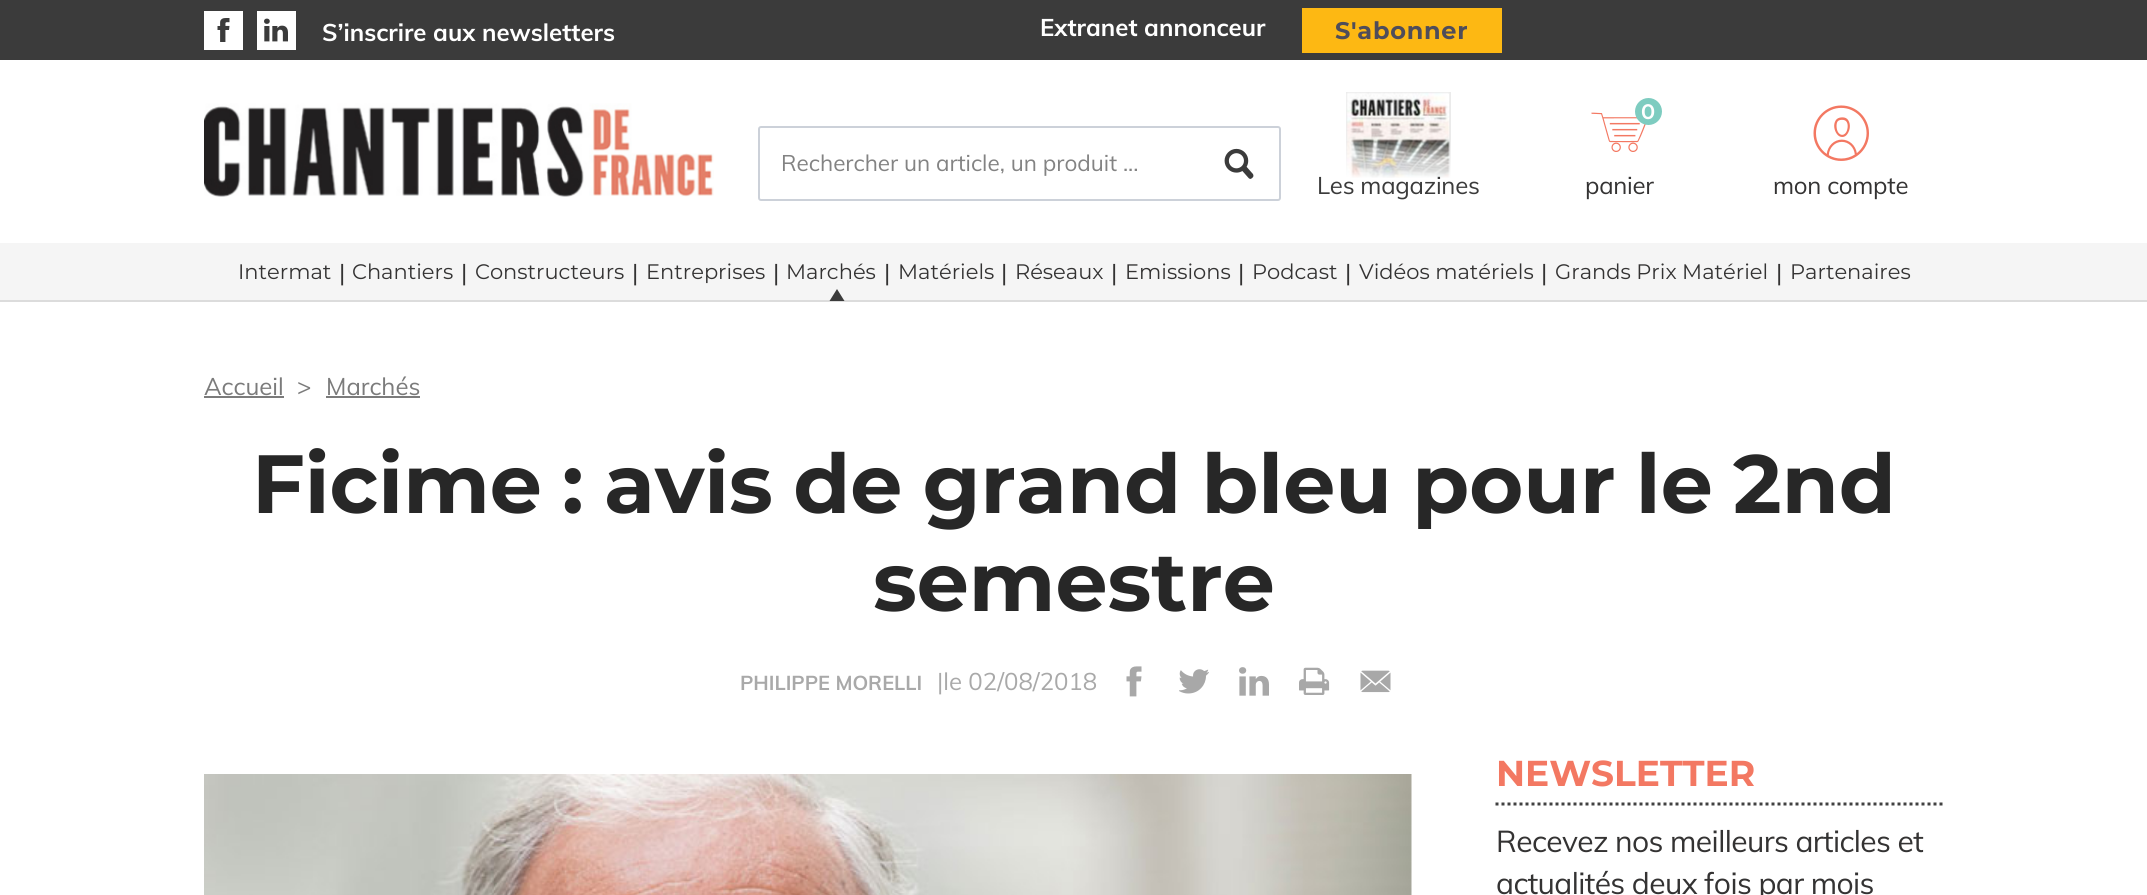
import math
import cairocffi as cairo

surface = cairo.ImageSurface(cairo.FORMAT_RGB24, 2147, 895)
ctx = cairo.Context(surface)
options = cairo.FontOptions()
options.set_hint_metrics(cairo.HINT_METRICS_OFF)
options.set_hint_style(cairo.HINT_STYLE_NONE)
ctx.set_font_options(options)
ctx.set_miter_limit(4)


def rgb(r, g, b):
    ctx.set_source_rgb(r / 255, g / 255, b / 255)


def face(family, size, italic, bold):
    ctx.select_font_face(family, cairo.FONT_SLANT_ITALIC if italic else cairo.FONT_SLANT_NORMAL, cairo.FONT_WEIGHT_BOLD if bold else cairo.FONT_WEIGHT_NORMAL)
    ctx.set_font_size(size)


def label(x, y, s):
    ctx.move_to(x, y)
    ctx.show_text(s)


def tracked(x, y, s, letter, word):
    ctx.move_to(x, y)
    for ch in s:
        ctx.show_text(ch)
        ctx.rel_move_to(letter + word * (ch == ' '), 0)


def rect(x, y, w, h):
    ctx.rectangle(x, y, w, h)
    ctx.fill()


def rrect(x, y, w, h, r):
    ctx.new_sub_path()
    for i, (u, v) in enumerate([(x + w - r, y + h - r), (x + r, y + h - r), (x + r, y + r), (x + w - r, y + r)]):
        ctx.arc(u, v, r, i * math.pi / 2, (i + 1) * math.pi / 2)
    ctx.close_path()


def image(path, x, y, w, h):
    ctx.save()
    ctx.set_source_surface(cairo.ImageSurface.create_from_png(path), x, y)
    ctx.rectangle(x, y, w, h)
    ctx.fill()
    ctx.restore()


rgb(255, 255, 255)
ctx.paint()
rgb(220, 220, 220)
rect(0, 300, 2147, 2)
rgb(59, 59, 59)
rect(0, 0, 2147, 60)
rgb(255, 255, 255)
rect(204, 11, 39, 39)
image('image0.png', 217, 18, 13, 24)
rect(257, 11, 39, 39)
image('image1.png', 264, 18, 24, 24)
face('Muli', 24, 0, 1)
label(322, 41, 'S’inscrire aux newsletters')
label(1040, 36, 'Extranet annonceur')
rgb(253, 184, 19)
rect(1302, 8, 200, 45)
face('Montserrat', 24, 0, 1)
rgb(79, 77, 90)
tracked(1335, 39, 'S\'abonner', 0.75, 0)
image('image2.png', 204, 103, 510, 94)
rrect(759, 127, 521, 73, 2)
rgb(204, 209, 217)
ctx.stroke()
face('Muli', 22.5, 0, 0)
rgb(131, 131, 131)
label(781, 171, 'Rechercher un article, un produit ...')
image('image3.png', 1224, 148, 30, 31)
ctx.rectangle(1347, 93, 103, 142)
rgb(235, 235, 235)
ctx.stroke()
image('image4.png', 1346, 92, 104, 86)
gradient = cairo.LinearGradient(1398, 91, 1398, 242)
gradient.add_color_stop_rgba(0.32, 1, 1, 1, 0)
gradient.add_color_stop_rgba(0.58, 1, 1, 1, 1)
ctx.set_source(gradient)
rect(1346, 140, 105, 96)
face('Muli', 24, 0, 0)
rgb(59, 59, 59)
tracked(1317, 194, 'Les magazines', -0.25, 0)
image('image5.png', 1591, 112, 55, 40)
rgb(126, 204, 192)
ctx.arc(1648.5, 111.5, 13.5, 0, 2 * math.pi)
ctx.fill()
face('Montserrat SemiBold', 21, 0, 0)
rgb(255, 255, 255)
label(1641, 119, '0')
face('Muli', 24, 0, 0)
rgb(52, 51, 51)
tracked(1585, 194, 'panier', -0.25, 0)
image('image6.png', 1813, 105, 56, 56)
tracked(1773, 194, 'mon compte', -0.25, 0)
rgb(245, 245, 245)
rect(0, 243, 2147, 57)
face('Montserrat', 21, 0, 0)
rgb(52, 51, 51)
label(238, 279, 'Intermat')
face('Muli', 24, 0, 0)
label(339, 281, '|')
face('Montserrat', 21, 0, 0)
label(352, 279, 'Chantiers')
face('Muli', 24, 0, 0)
label(461, 281, '|')
face('Montserrat', 21, 0, 0)
label(475, 279, 'Constructeurs')
face('Muli', 24, 0, 0)
label(632, 281, '|')
face('Montserrat', 21, 0, 0)
label(646, 279, 'Entreprises')
face('Muli', 24, 0, 0)
label(773, 281, '|')
face('Montserrat', 21, 0, 0)
label(786, 279, 'Marchés')
rgb(59, 59, 59)
ctx.new_path()
ctx.move_to(829.5, 301)
ctx.line_to(844.5, 301)
ctx.line_to(837, 289)
ctx.close_path()
ctx.fill()
face('Muli', 24, 0, 0)
rgb(52, 51, 51)
label(884, 281, '|')
face('Montserrat', 21, 0, 0)
label(898, 279, 'Matériels')
face('Muli', 24, 0, 0)
label(1001, 281, '|')
face('Montserrat', 21, 0, 0)
label(1015, 279, 'Réseaux')
face('Muli', 24, 0, 0)
label(1111, 281, '|')
face('Montserrat', 21, 0, 0)
label(1125, 279, 'Emissions')
face('Muli', 24, 0, 0)
label(1238, 281, '|')
face('Montserrat', 21, 0, 0)
label(1252, 279, 'Podcast')
face('Muli', 24, 0, 0)
label(1345, 281, '|')
face('Montserrat', 21, 0, 0)
label(1359, 279, 'Vidéos matériels')
face('Muli', 24, 0, 0)
label(1541, 281, '|')
face('Montserrat', 21, 0, 0)
label(1555, 279, 'Grands Prix Matériel')
face('Muli', 24, 0, 0)
label(1776, 281, '|')
face('Montserrat', 21, 0, 0)
label(1790, 279, 'Partenaires')
face('Muli', 24, 0, 0)
rgb(123, 123, 123)
label(204, 395, 'Accueil')
rect(204, 396, 80, 2)
label(297, 395, '>')
label(326, 395, 'Marchés')
rect(326, 396, 94, 2)
face('Montserrat', 82.5, 0, 1)
rgb(39, 39, 39)
tracked(252, 513, 'Ficime : avis de grand bleu pour le 2nd', 0, -3)
label(873, 611, 'semestre')
face('Muli', 20, 0, 1)
rgb(169, 169, 169)
label(740, 690, 'PHILIPPE MORELLI')
face('Muli', 24, 0, 0)
label(937, 690, '|le 02/08/2018')
image('image7.png', 1126, 666, 16, 31)
image('image8.png', 1179, 669, 30, 25)
image('image9.png', 1239, 667, 30, 29)
image('image10.png', 1299, 667, 31, 28)
image('image11.png', 1360, 670, 31, 23)
image('image12.png', 204, 774, 1208, 121)
ctx.new_path()
ctx.move_to(1495.5, 804)
ctx.line_to(1944, 804)
rgb(65, 65, 65)
ctx.set_line_width(3)
ctx.set_dash([3, 3])
ctx.stroke()
face('Montserrat', 36, 0, 1)
rgb(243, 120, 98)
label(1496, 786, 'NEWSLETTER')
face('Muli', 30, 0, 0)
rgb(52, 51, 51)
tracked(1496, 852, 'Recevez nos meilleurs articles et', -0.6, 0)
tracked(1496, 894, 'actualités deux fois par mois', -0.6, 0)
surface.write_to_png('render.png')
